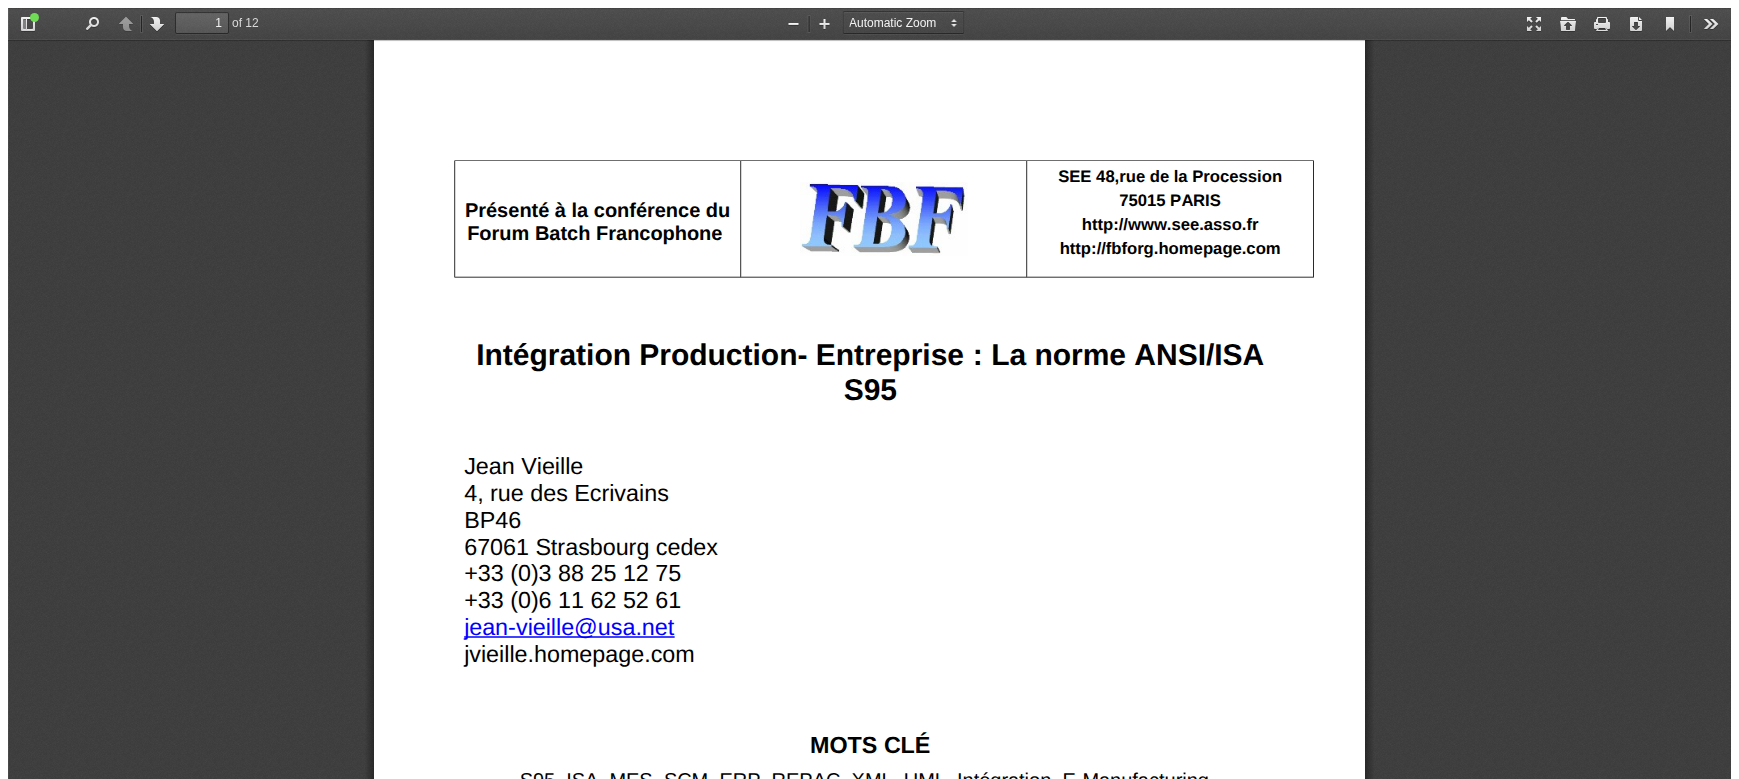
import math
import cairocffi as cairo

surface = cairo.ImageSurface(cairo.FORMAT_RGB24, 1739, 779)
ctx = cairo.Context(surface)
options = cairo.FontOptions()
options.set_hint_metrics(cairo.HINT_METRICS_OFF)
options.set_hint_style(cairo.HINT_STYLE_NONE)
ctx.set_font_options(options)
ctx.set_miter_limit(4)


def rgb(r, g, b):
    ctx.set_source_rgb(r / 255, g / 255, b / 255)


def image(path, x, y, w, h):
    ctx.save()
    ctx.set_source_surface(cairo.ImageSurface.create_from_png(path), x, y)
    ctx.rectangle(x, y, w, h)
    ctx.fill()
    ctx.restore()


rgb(255, 255, 255)
ctx.paint()
image('image0.png', 8, 8, 1723, 771)
surface.write_to_png('render.png')
